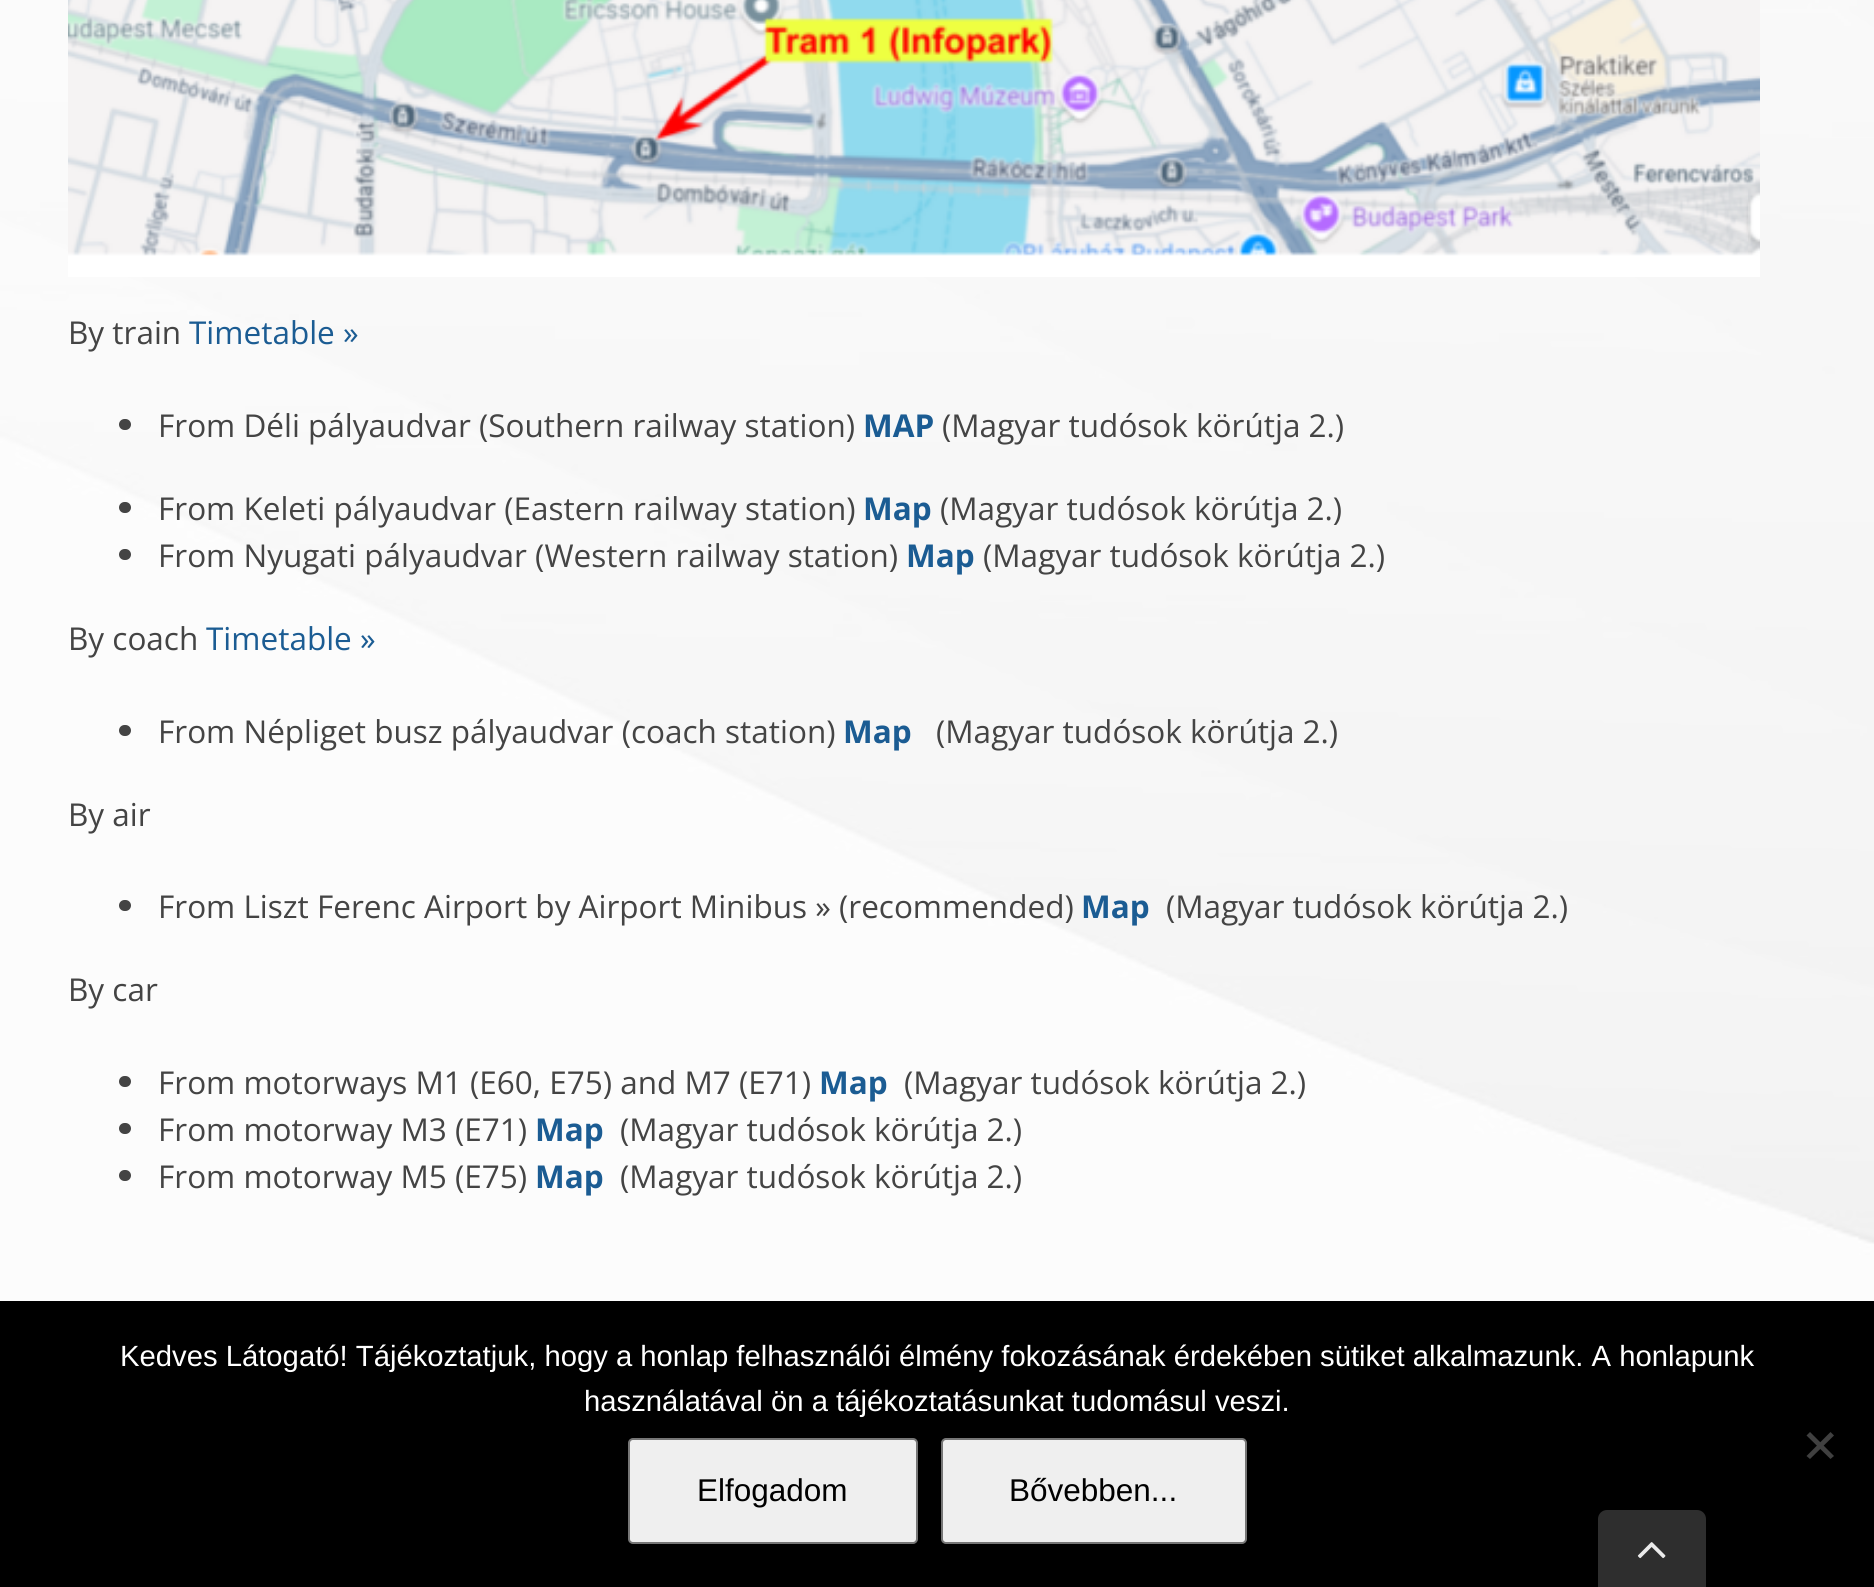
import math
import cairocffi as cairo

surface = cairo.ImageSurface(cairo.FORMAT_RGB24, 1874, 1587)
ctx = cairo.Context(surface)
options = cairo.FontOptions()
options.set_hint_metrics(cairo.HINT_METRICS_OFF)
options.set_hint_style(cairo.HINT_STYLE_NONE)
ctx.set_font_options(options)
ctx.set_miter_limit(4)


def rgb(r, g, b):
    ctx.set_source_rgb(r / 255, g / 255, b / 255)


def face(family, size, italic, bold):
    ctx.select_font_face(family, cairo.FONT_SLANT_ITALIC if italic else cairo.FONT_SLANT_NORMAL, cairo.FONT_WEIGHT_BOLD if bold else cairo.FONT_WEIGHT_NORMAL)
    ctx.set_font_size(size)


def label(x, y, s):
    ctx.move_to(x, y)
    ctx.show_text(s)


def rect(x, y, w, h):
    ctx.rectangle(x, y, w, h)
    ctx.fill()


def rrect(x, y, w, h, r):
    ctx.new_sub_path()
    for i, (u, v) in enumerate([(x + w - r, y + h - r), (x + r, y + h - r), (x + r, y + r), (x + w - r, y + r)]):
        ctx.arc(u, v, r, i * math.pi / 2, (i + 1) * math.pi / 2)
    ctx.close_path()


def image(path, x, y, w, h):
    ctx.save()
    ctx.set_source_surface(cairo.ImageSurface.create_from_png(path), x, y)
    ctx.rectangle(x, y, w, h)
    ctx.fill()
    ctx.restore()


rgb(252, 252, 252)
ctx.paint()
image('image0.png', 0, 0, 1874, 1255)
image('image1.png', 68, 0, 1692, 277)
face('Open Sans', 31.5, 0, 0)
rgb(68, 68, 68)
label(68, 344, 'By train')
rgb(27, 92, 147)
label(189, 344, 'Timetable »')
rgb(68, 68, 68)
rrect(119, 419, 12, 11, 5.5)
ctx.fill()
label(158, 437, 'From Déli pályaudvar (Southern railway station)')
face('Open Sans', 31.5, 0, 1)
rgb(27, 92, 147)
label(863, 437, 'MAP')
face('Open Sans', 31.5, 0, 0)
rgb(68, 68, 68)
label(942, 437, '(Magyar tudósok körútja 2.)')
rrect(119, 502, 12, 11, 5.5)
ctx.fill()
label(158, 520, 'From Keleti pályaudvar (Eastern railway station)')
face('Open Sans', 31.5, 0, 1)
rgb(27, 92, 147)
label(863, 520, 'Map')
face('Open Sans', 31.5, 0, 0)
rgb(68, 68, 68)
label(940, 520, '(Magyar tudósok körútja 2.)')
rrect(119, 549, 12, 11, 5.5)
ctx.fill()
label(158, 567, 'From Nyugati pályaudvar (Western railway station)')
face('Open Sans', 31.5, 0, 1)
rgb(27, 92, 147)
label(906, 567, 'Map')
face('Open Sans', 31.5, 0, 0)
rgb(68, 68, 68)
label(983, 567, '(Magyar tudósok körútja 2.)')
label(68, 650, 'By coach')
rgb(27, 92, 147)
label(206, 650, 'Timetable »')
rgb(68, 68, 68)
rrect(119, 725, 12, 11, 5.5)
ctx.fill()
label(158, 743, 'From Népliget busz pályaudvar (coach station)')
face('Open Sans', 31.5, 0, 1)
rgb(27, 92, 147)
label(843, 743, 'Map')
face('Open Sans', 31.5, 0, 0)
rgb(68, 68, 68)
label(936, 743, '(Magyar tudósok körútja 2.)')
label(68, 826, 'By air')
rrect(119, 900, 12, 11, 5.5)
ctx.fill()
label(158, 918, 'From Liszt Ferenc Airport by Airport Minibus » (recommended)')
face('Open Sans', 31.5, 0, 1)
rgb(27, 92, 147)
label(1081, 918, 'Map')
face('Open Sans', 31.5, 0, 0)
rgb(68, 68, 68)
label(1166, 918, '(Magyar tudósok körútja 2.)')
label(68, 1001, 'By car')
rrect(119, 1076, 12, 11, 5.5)
ctx.fill()
label(158, 1094, 'From motorways M1 (E60, E75) and M7 (E71)')
face('Open Sans', 31.5, 0, 1)
rgb(27, 92, 147)
label(819, 1094, 'Map')
face('Open Sans', 31.5, 0, 0)
rgb(68, 68, 68)
label(904, 1094, '(Magyar tudósok körútja 2.)')
rrect(119, 1123, 12, 11, 5.5)
ctx.fill()
label(158, 1141, 'From motorway M3 (E71)')
face('Open Sans', 31.5, 0, 1)
rgb(27, 92, 147)
label(535, 1141, 'Map')
face('Open Sans', 31.5, 0, 0)
rgb(68, 68, 68)
label(620, 1141, '(Magyar tudósok körútja 2.)')
rrect(119, 1170, 12, 11, 5.5)
ctx.fill()
label(158, 1188, 'From motorway M5 (E75)')
face('Open Sans', 31.5, 0, 1)
rgb(27, 92, 147)
label(535, 1188, 'Map')
face('Open Sans', 31.5, 0, 0)
rgb(68, 68, 68)
label(620, 1188, '(Magyar tudósok körútja 2.)')
rgb(0, 0, 0)
rect(0, 1301, 1874, 286)
face('Liberation Sans', 29.25, 0, 0)
rgb(255, 255, 255)
label(120, 1366, 'Kedves Látogató! Tájékoztatjuk, hogy a honlap felhasználói élmény fokozásának érdekében sütiket alkalmazunk. A honlapunk')
label(584, 1411, 'használatával ön a tájékoztatásunkat tudomásul veszi.')
rgb(64, 64, 64)
ctx.new_path()
ctx.move_to(1830.5, 1432)
ctx.line_to(1834, 1435.5)
ctx.line_to(1810, 1459)
ctx.line_to(1806.5, 1456)
ctx.close_path()
ctx.fill()
ctx.new_path()
ctx.move_to(1806.5, 1435.5)
ctx.line_to(1810, 1432)
ctx.line_to(1834, 1456)
ctx.line_to(1830.5, 1459)
ctx.close_path()
ctx.fill()
rgb(239, 239, 239)
rrect(629, 1439, 288, 104, 4)
ctx.fill_preserve()
rgb(118, 118, 118)
ctx.stroke()
face('Liberation Sans', 31.5, 0, 0)
rgb(0, 0, 0)
label(697, 1501, 'Elfogadom')
rgb(239, 239, 239)
rrect(942, 1439, 304, 104, 4)
ctx.fill_preserve()
rgb(118, 118, 118)
ctx.stroke()
rgb(0, 0, 0)
label(1009, 1501, 'Bővebben...')
rgb(46, 46, 46)
ctx.new_path()
ctx.move_to(1607, 1510)
ctx.line_to(1697, 1510)
ctx.curve_to(1702, 1510, 1706, 1514, 1706, 1519)
ctx.line_to(1706, 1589)
ctx.line_to(1598, 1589)
ctx.line_to(1598, 1519)
ctx.curve_to(1598, 1514, 1602, 1510, 1607, 1510)
ctx.close_path()
ctx.fill()
image('image2.png', 1637, 1542, 29, 17)
surface.write_to_png('render.png')
